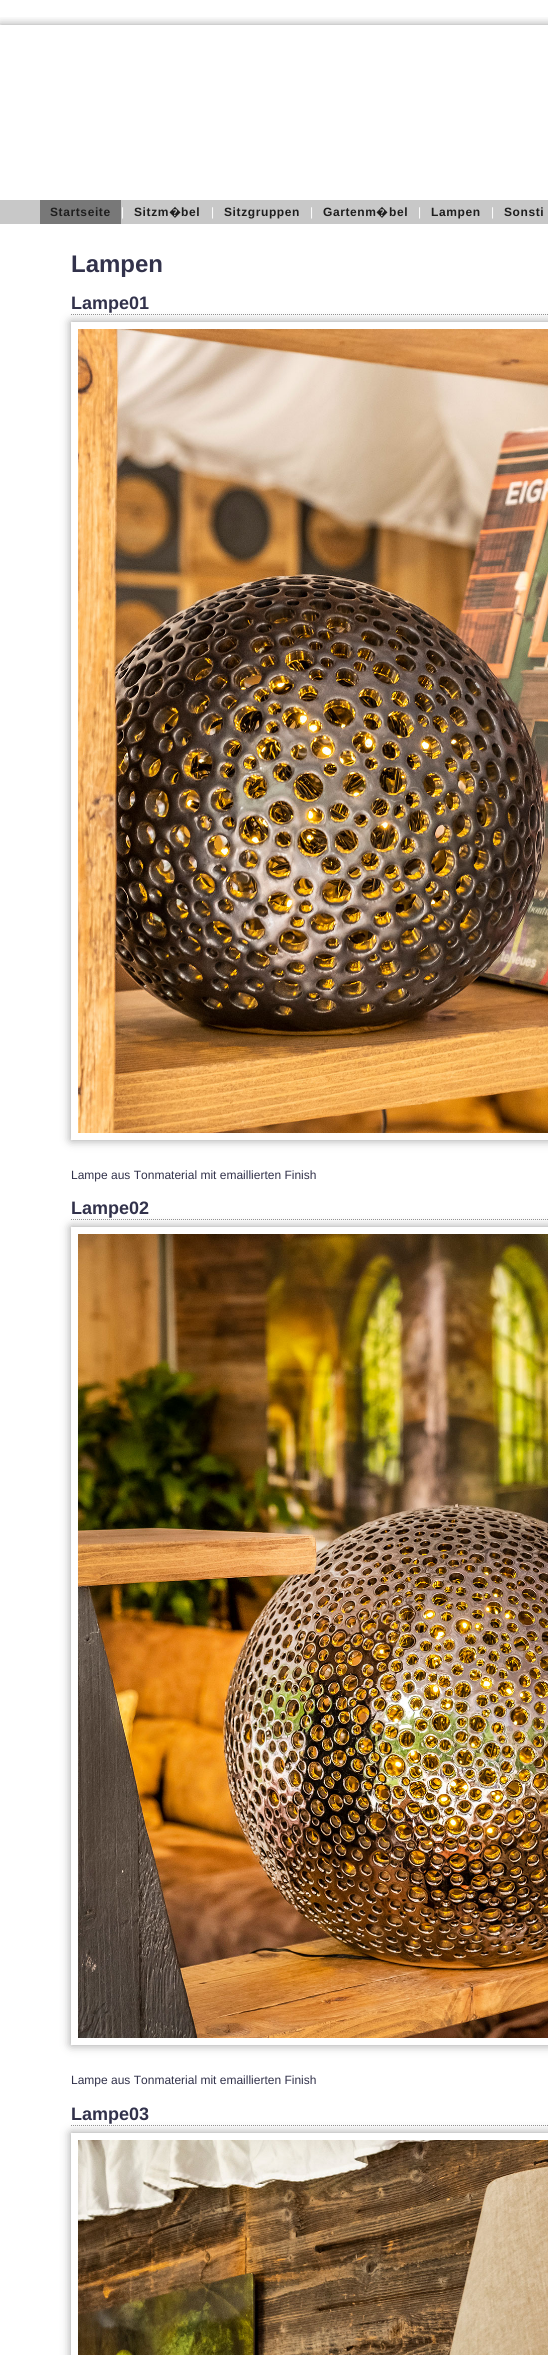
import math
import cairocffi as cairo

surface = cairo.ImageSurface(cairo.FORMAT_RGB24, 548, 2355)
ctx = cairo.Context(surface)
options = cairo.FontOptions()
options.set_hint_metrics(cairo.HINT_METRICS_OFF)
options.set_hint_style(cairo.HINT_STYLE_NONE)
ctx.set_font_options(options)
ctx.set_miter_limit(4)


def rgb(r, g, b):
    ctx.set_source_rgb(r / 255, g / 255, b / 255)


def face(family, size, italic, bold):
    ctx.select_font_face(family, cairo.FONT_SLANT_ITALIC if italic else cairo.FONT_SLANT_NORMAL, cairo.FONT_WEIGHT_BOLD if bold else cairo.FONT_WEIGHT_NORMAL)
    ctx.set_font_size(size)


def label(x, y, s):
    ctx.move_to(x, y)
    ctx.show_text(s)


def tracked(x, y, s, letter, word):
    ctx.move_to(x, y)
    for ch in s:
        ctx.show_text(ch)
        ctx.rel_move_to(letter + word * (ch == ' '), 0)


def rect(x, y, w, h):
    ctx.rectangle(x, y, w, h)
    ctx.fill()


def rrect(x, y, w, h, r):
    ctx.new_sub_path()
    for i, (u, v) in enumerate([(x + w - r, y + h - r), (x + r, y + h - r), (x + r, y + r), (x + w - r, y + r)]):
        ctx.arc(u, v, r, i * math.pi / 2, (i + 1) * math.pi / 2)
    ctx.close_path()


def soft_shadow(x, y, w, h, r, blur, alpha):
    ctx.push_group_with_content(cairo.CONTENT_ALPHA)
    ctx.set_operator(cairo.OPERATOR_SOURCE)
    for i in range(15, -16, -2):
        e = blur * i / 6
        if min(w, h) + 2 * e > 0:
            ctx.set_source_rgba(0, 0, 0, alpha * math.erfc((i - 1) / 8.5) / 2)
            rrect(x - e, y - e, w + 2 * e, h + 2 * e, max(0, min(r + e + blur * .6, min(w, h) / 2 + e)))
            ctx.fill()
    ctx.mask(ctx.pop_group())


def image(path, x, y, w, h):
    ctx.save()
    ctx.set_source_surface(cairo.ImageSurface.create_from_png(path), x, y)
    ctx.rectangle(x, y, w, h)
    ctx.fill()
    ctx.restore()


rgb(255, 255, 255)
ctx.paint()
ctx.save()
ctx.rectangle(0, 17, 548, 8)
ctx.clip()
rgb(0, 0, 0)
soft_shadow(0, 25, 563, 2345, 0, 5, 0.4)
ctx.restore()
rgb(200, 200, 200)
rect(0, 200, 548, 24)
rgb(120, 120, 120)
rect(40, 200, 81, 24)
face('Liberation Sans', 12, 0, 1)
rgb(30, 30, 30)
tracked(50, 216, 'Startseite', 0.6, 0)
face('Liberation Sans', 12, 0, 0)
rgb(255, 255, 255)
label(121, 216, '|')
face('Liberation Sans', 12, 0, 1)
rgb(30, 30, 30)
tracked(134, 216, 'Sitzm', 0.6, 0)
face('Noto Sans SemiBold', 12, 0, 0)
tracked(169, 216, '�', 0.6, 0)
face('Liberation Sans', 12, 0, 1)
tracked(181, 216, 'bel', 0.6, 0)
face('Liberation Sans', 12, 0, 0)
rgb(255, 255, 255)
label(211, 216, '|')
face('Liberation Sans', 12, 0, 1)
rgb(30, 30, 30)
tracked(224, 216, 'Sitzgruppen', 0.6, 0)
face('Liberation Sans', 12, 0, 0)
rgb(255, 255, 255)
label(310, 216, '|')
face('Liberation Sans', 12, 0, 1)
rgb(30, 30, 30)
tracked(323, 216, 'Gartenm', 0.6, 0)
face('Noto Sans SemiBold', 12, 0, 0)
tracked(376, 216, '�', 0.6, 0)
face('Liberation Sans', 12, 0, 1)
tracked(389, 216, 'bel', 0.6, 0)
face('Liberation Sans', 12, 0, 0)
rgb(255, 255, 255)
label(418, 216, '|')
face('Liberation Sans', 12, 0, 1)
rgb(30, 30, 30)
tracked(431, 216, 'Lampen', 0.6, 0)
face('Liberation Sans', 12, 0, 0)
rgb(255, 255, 255)
label(491, 216, '|')
face('Liberation Sans', 12, 0, 1)
rgb(30, 30, 30)
tracked(504, 216, 'Sonsti', 0.6, 0)
face('Liberation Sans', 24, 0, 1)
rgb(50, 50, 75)
label(71, 272, 'Lampen')
ctx.new_path()
ctx.move_to(71, 314.5)
ctx.line_to(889, 314.5)
rgb(150, 150, 150)
ctx.set_line_width(1)
ctx.set_dash([1, 1])
ctx.stroke()
face('Liberation Sans', 18, 0, 1)
rgb(50, 50, 75)
label(71, 309, 'Lampe01')
ctx.save()
ctx.set_fill_rule(cairo.FILL_RULE_EVEN_ODD)
ctx.new_path()
ctx.move_to(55, 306)
ctx.line_to(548, 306)
ctx.line_to(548, 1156)
ctx.line_to(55, 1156)
ctx.close_path()
ctx.move_to(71, 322)
ctx.line_to(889, 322)
ctx.line_to(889, 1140)
ctx.line_to(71, 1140)
ctx.close_path()
ctx.clip()
rgb(0, 0, 0)
soft_shadow(71, 322, 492, 818, 0, 5, 0.4)
ctx.restore()
image('image0.png', 78, 329, 470, 804)
face('Liberation Sans', 12, 0, 0)
label(71, 1179, 'Lampe aus Tonmaterial mit emaillierten Finish')
ctx.new_path()
ctx.move_to(71, 1219.5)
ctx.line_to(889, 1219.5)
rgb(150, 150, 150)
ctx.stroke()
face('Liberation Sans', 18, 0, 1)
rgb(50, 50, 75)
label(71, 1214, 'Lampe02')
ctx.save()
ctx.set_fill_rule(cairo.FILL_RULE_EVEN_ODD)
ctx.new_path()
ctx.move_to(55, 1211)
ctx.line_to(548, 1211)
ctx.line_to(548, 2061)
ctx.line_to(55, 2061)
ctx.close_path()
ctx.move_to(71, 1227)
ctx.line_to(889, 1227)
ctx.line_to(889, 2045)
ctx.line_to(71, 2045)
ctx.close_path()
ctx.clip()
rgb(0, 0, 0)
soft_shadow(71, 1227, 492, 818, 0, 5, 0.4)
ctx.restore()
image('image1.png', 78, 1234, 470, 804)
face('Liberation Sans', 12, 0, 0)
label(71, 2084, 'Lampe aus Tonmaterial mit emaillierten Finish')
ctx.new_path()
ctx.move_to(71, 2125.5)
ctx.line_to(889, 2125.5)
rgb(150, 150, 150)
ctx.stroke()
face('Liberation Sans', 18, 0, 1)
rgb(50, 50, 75)
label(71, 2120, 'Lampe03')
ctx.save()
ctx.set_fill_rule(cairo.FILL_RULE_EVEN_ODD)
ctx.new_path()
ctx.move_to(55, 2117)
ctx.line_to(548, 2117)
ctx.line_to(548, 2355)
ctx.line_to(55, 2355)
ctx.close_path()
ctx.move_to(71, 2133)
ctx.line_to(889, 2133)
ctx.line_to(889, 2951)
ctx.line_to(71, 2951)
ctx.close_path()
ctx.clip()
rgb(0, 0, 0)
soft_shadow(71, 2133, 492, 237, 0, 5, 0.4)
ctx.restore()
image('image2.png', 78, 2140, 470, 215)
surface.write_to_png('render.png')
